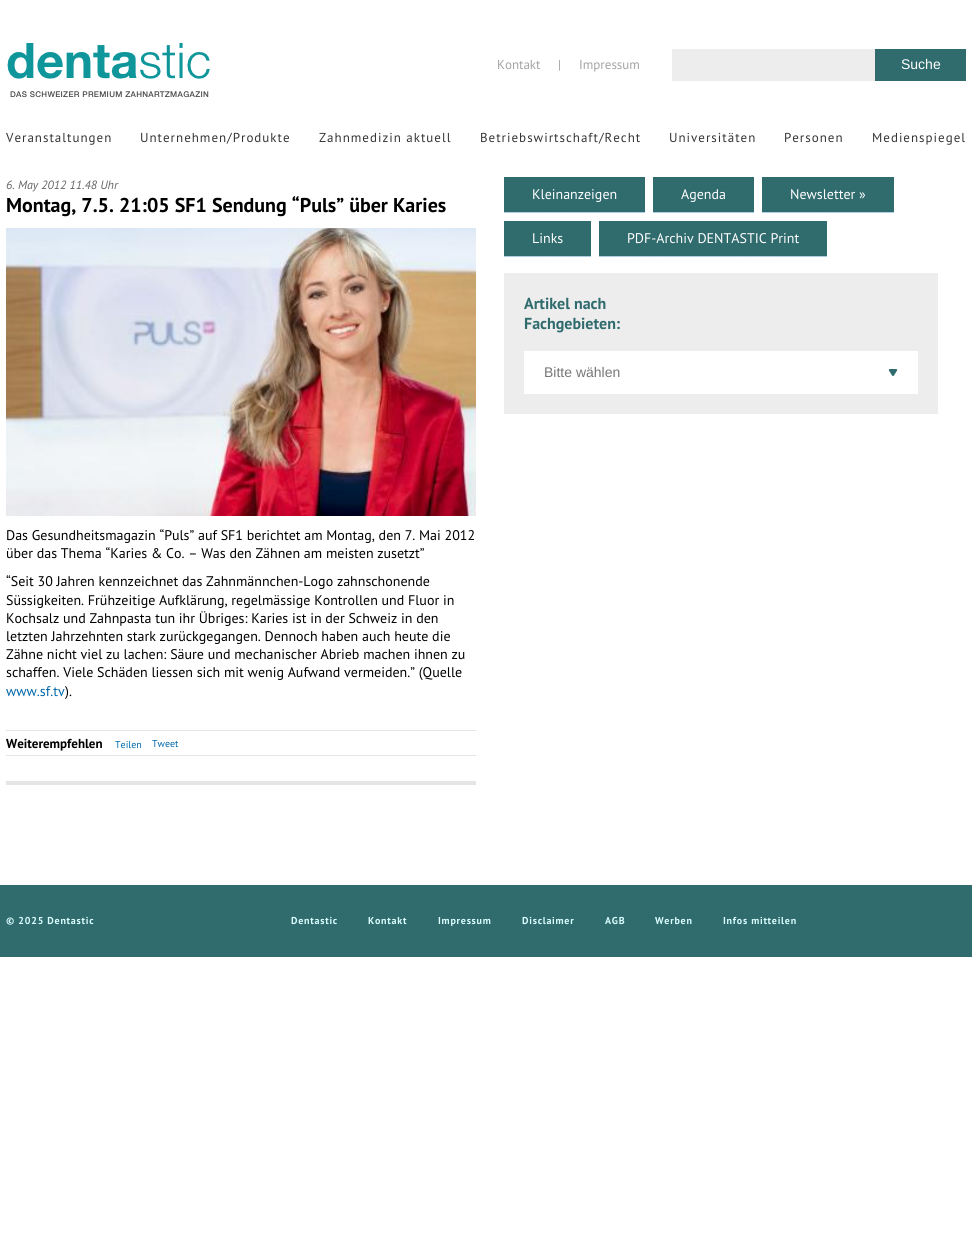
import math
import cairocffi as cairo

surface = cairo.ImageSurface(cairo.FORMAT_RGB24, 972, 1251)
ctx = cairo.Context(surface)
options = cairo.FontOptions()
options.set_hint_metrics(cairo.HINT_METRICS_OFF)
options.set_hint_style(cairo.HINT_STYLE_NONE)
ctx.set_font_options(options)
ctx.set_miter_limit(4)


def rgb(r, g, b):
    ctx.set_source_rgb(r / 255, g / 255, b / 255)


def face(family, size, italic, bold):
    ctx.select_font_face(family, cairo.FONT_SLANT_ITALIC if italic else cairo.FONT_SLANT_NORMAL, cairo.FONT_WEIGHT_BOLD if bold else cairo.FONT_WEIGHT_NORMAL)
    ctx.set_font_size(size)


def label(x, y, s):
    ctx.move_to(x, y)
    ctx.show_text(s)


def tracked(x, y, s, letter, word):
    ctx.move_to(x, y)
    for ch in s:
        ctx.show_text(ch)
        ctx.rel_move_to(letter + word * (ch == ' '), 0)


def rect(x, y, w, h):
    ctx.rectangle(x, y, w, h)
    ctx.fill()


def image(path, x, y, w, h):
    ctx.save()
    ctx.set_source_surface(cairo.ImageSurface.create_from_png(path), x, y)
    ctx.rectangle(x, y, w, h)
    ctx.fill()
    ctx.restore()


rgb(255, 255, 255)
ctx.paint()
image('image0.png', 7, 43, 203, 55)
face('PT Sans', 13, 0, 0)
rgb(163, 163, 163)
label(497, 69, 'Kontakt')
label(558, 69, '|')
label(579, 69, 'Impressum')
rgb(237, 237, 237)
rect(672, 49, 203, 32)
rgb(48, 107, 110)
rect(875, 49, 91, 32)
face('Liberation Sans', 14, 0, 0)
rgb(255, 255, 255)
label(901, 69, 'Suche')
face('PT Sans', 13, 0, 0)
rgb(52, 52, 52)
tracked(6, 142, 'Veranstaltungen', 1, 0)
tracked(140, 142, 'Unternehmen/Produkte', 1, 0)
tracked(319, 142, 'Zahnmedizin aktuell', 1, 0)
tracked(480, 142, 'Betriebswirtschaft/Recht', 1, 0)
tracked(669, 142, 'Universitäten', 1, 0)
tracked(784, 142, 'Personen', 1, 0)
tracked(872, 142, 'Medienspiegel', 1, 0)
rgb(229, 229, 229)
rect(6, 781, 470, 4)
face('PT Sans', 12, 1, 0)
rgb(102, 102, 102)
label(6, 189, '6. May 2012 11.48 Uhr')
face('PT Sans', 20, 0, 1)
rgb(0, 0, 0)
label(6, 212, 'Montag, 7.5. 21:05 SF1 Sendung “Puls” über Karies')
image('image1.png', 6, 228, 470, 288)
face('PT Sans', 14, 0, 0)
label(6, 540, 'Das Gesundheitsmagazin “Puls” auf SF1 berichtet am Montag, den 7. Mai 2012')
label(6, 558, 'über das Thema “Karies & Co. – Was den Zähnen am meisten zusetzt”')
label(6, 586, '“Seit 30 Jahren kennzeichnet das Zahnmännchen-Logo zahnschonende')
label(6, 605, 'Süssigkeiten. Frühzeitige Aufklärung, regelmässige Kontrollen und Fluor in')
label(6, 623, 'Kochsalz und Zahnpasta tun ihr Übriges: Karies ist in der Schweiz in den')
label(6, 641, 'letzten Jahrzehnten stark zurückgegangen. Dennoch haben auch heute die')
label(6, 659, 'Zähne nicht viel zu lachen: Säure und mechanischer Abrieb machen ihnen zu')
label(6, 677, 'schaffen. Viele Schäden liessen sich mit wenig Aufwand vermeiden.” (Quelle')
rgb(0, 103, 169)
label(6, 696, 'www.sf.tv')
rgb(0, 0, 0)
label(65, 696, ').')
rgb(229, 229, 229)
rect(6, 730, 470, 1)
rect(6, 755, 470, 1)
face('PT Sans', 13, 0, 1)
rgb(0, 0, 0)
label(6, 748, 'Weiterempfehlen')
face('PT Sans', 10, 0, 0)
rgb(0, 103, 169)
label(115, 748, 'Teilen')
label(152, 747, 'Tweet')
image('image2.png', 504, 212, 141, 1)
rgb(48, 107, 110)
rect(504, 177, 141, 35)
face('PT Sans', 14, 0, 0)
rgb(255, 255, 255)
label(532, 199, 'Kleinanzeigen')
image('image3.png', 653, 212, 101, 1)
rgb(48, 107, 110)
rect(653, 177, 101, 35)
rgb(255, 255, 255)
label(681, 199, 'Agenda')
image('image4.png', 762, 212, 132, 1)
rgb(48, 107, 110)
rect(762, 177, 132, 35)
rgb(255, 255, 255)
label(790, 199, 'Newsletter »')
image('image5.png', 504, 256, 87, 1)
rgb(48, 107, 110)
rect(504, 221, 87, 35)
rgb(255, 255, 255)
label(532, 243, 'Links')
image('image6.png', 599, 256, 228, 1)
rgb(48, 107, 110)
rect(599, 221, 228, 35)
rgb(255, 255, 255)
label(627, 243, 'PDF-Archiv DENTASTIC Print')
rgb(237, 237, 237)
rect(504, 273, 434, 141)
face('PT Sans', 16, 0, 1)
rgb(48, 107, 110)
label(524, 309, 'Artikel nach')
label(524, 329, 'Fachgebieten:')
rgb(255, 255, 255)
rect(524, 351, 394, 43)
face('Liberation Sans', 14, 0, 0)
rgb(118, 118, 118)
label(544, 377, 'Bitte wählen')
image('image7.png', 888, 369, 10, 8)
rgb(48, 107, 110)
rect(0, 885, 972, 72)
face('PT Sans', 10, 0, 1)
rgb(219, 254, 255)
tracked(6, 924, '© 2025 Dentastic', 0.75, 0)
tracked(291, 924, 'Dentastic', 0.75, 0)
tracked(368, 924, 'Kontakt', 0.75, 0)
tracked(438, 924, 'Impressum', 0.75, 0)
tracked(522, 924, 'Disclaimer', 0.75, 0)
tracked(605, 924, 'AGB', 0.75, 0)
tracked(655, 924, 'Werben', 0.75, 0)
tracked(723, 924, 'Infos mitteilen', 0.75, 0)
surface.write_to_png('render.png')
